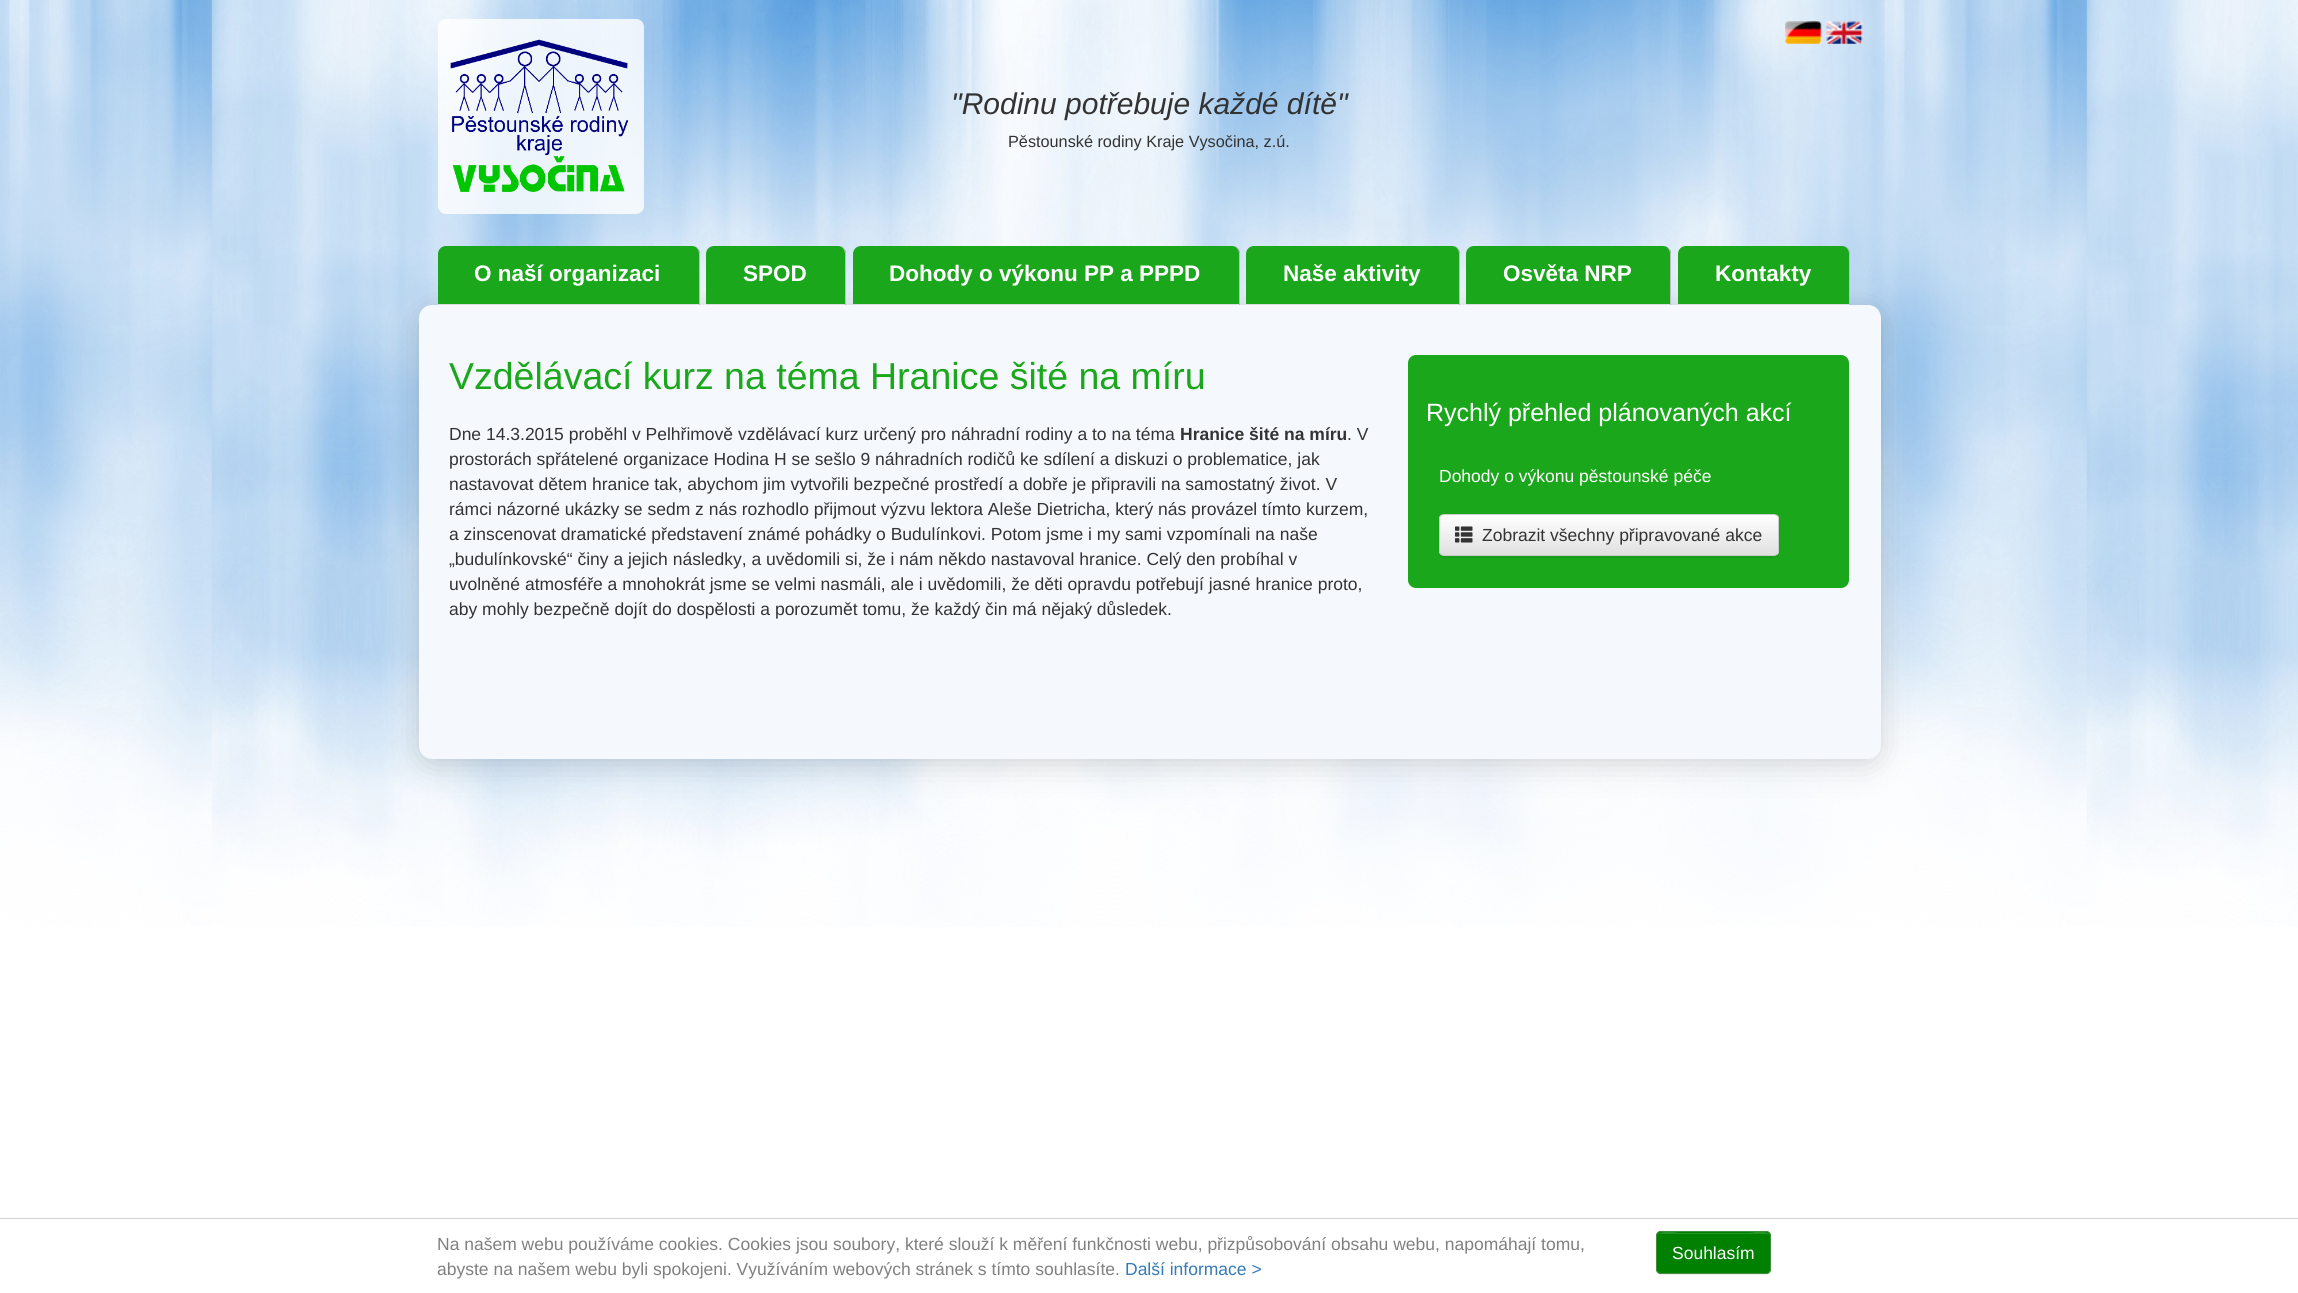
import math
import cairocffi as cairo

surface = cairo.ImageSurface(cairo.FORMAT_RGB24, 2298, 1293)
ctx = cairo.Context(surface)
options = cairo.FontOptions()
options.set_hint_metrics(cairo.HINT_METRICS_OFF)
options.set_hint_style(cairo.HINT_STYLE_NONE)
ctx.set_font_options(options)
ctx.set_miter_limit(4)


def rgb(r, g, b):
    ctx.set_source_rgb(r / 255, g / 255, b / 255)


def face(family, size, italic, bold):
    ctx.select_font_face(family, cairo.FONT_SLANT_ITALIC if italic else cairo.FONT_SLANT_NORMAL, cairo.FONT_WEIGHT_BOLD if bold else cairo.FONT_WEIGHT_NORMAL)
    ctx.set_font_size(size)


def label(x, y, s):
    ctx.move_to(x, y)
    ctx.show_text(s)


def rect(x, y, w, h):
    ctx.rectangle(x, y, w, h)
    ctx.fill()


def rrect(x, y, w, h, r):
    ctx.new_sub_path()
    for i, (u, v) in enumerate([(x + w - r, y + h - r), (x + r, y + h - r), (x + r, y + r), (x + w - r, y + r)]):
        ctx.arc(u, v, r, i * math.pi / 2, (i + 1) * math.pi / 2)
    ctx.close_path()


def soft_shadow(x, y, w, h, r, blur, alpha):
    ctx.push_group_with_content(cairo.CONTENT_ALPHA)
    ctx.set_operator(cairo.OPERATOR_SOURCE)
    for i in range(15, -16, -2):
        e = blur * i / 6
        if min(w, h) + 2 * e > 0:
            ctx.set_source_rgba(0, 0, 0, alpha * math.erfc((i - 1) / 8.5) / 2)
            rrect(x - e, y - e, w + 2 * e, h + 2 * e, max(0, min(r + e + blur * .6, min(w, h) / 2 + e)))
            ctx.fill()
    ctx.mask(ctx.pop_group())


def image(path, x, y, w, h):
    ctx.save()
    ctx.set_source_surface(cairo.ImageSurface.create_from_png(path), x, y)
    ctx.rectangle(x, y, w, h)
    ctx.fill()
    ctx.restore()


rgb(255, 255, 255)
ctx.paint()
image('image0.png', 0, 0, 2298, 927)
ctx.set_source_rgba(1, 1, 1, 0.8)
rrect(438, 19, 206, 195, 8)
ctx.fill()
image('image1.png', 450, 39, 179, 153)
image('image2.png', 1785, 21, 37, 23)
image('image3.png', 1826, 21, 37, 23)
face('Liberation Sans', 30, 1, 0)
rgb(51, 51, 51)
label(951, 114, '"Rodinu potřebuje každé dítě"')
face('Liberation Sans', 16.25, 0, 0)
label(1008, 147, 'Pěstounské rodiny Kraje Vysočina, z.ú.')
rgb(50, 50, 50)
soft_shadow(419, 310, 1462, 454, 13, 15.5, 0.2)
rgb(27, 167, 27)
ctx.new_path()
ctx.move_to(446, 246)
ctx.line_to(692, 246)
ctx.curve_to(696.5, 246, 700, 249.5, 700, 254)
ctx.line_to(700, 305)
ctx.line_to(438, 305)
ctx.line_to(438, 254)
ctx.curve_to(438, 249.5, 441.5, 246, 446, 246)
ctx.close_path()
ctx.fill()
rgb(190, 190, 190)
ctx.new_path()
ctx.move_to(699, 304)
ctx.line_to(699, 254)
ctx.curve_to(699, 251, 697, 247, 694, 246)
ctx.curve_to(698, 247, 700, 251, 700, 254)
ctx.line_to(700, 305)
ctx.close_path()
ctx.fill()
rgb(221, 221, 221)
ctx.new_path()
ctx.move_to(700, 305)
ctx.line_to(699, 304)
ctx.line_to(438, 304)
ctx.line_to(438, 305)
ctx.close_path()
ctx.fill()
face('Liberation Sans', 22.5, 0, 1)
rgb(255, 255, 255)
label(474, 281, 'O naší organizaci')
rgb(27, 167, 27)
ctx.new_path()
ctx.move_to(714, 246)
ctx.line_to(838, 246)
ctx.curve_to(842.5, 246, 846, 249.5, 846, 254)
ctx.line_to(846, 305)
ctx.line_to(706, 305)
ctx.line_to(706, 254)
ctx.curve_to(706, 249.5, 709.5, 246, 714, 246)
ctx.close_path()
ctx.fill()
rgb(190, 190, 190)
ctx.new_path()
ctx.move_to(845, 304)
ctx.line_to(845, 254)
ctx.curve_to(845, 251, 843, 247, 840, 246)
ctx.line_to(841, 246)
ctx.curve_to(844, 247, 846, 251, 846, 254)
ctx.line_to(846, 305)
ctx.close_path()
ctx.fill()
rgb(221, 221, 221)
ctx.new_path()
ctx.move_to(706, 304)
ctx.line_to(845, 304)
ctx.line_to(846, 305)
ctx.line_to(706, 305)
ctx.close_path()
ctx.fill()
rgb(255, 255, 255)
label(743, 281, 'SPOD')
rgb(27, 167, 27)
ctx.new_path()
ctx.move_to(861, 246)
ctx.line_to(1232, 246)
ctx.curve_to(1236.5, 246, 1240, 249.5, 1240, 254)
ctx.line_to(1240, 305)
ctx.line_to(853, 305)
ctx.line_to(853, 254)
ctx.curve_to(853, 249.5, 856.5, 246, 861, 246)
ctx.close_path()
ctx.fill()
rgb(190, 190, 190)
ctx.new_path()
ctx.move_to(1239, 304)
ctx.line_to(1239, 254)
ctx.curve_to(1239, 251, 1237, 247, 1234, 246)
ctx.curve_to(1238, 247, 1240, 251, 1240, 254)
ctx.line_to(1240, 305)
ctx.close_path()
ctx.fill()
rgb(221, 221, 221)
ctx.new_path()
ctx.move_to(1240, 305)
ctx.line_to(852, 305)
ctx.line_to(852, 304)
ctx.line_to(1239, 304)
ctx.close_path()
ctx.fill()
rgb(255, 255, 255)
label(889, 281, 'Dohody o výkonu PP a PPPD')
rgb(27, 167, 27)
ctx.new_path()
ctx.move_to(1254, 246)
ctx.line_to(1452, 246)
ctx.curve_to(1456.5, 246, 1460, 249.5, 1460, 254)
ctx.line_to(1460, 305)
ctx.line_to(1246, 305)
ctx.line_to(1246, 254)
ctx.curve_to(1246, 249.5, 1249.5, 246, 1254, 246)
ctx.close_path()
ctx.fill()
rgb(190, 190, 190)
ctx.new_path()
ctx.move_to(1459, 304)
ctx.line_to(1459, 254)
ctx.curve_to(1459, 251, 1457, 247, 1454, 246)
ctx.curve_to(1458, 247, 1460, 251, 1460, 254)
ctx.line_to(1460, 305)
ctx.close_path()
ctx.fill()
rgb(221, 221, 221)
ctx.new_path()
ctx.move_to(1460, 305)
ctx.line_to(1246, 305)
ctx.line_to(1246, 304)
ctx.line_to(1459, 304)
ctx.close_path()
ctx.fill()
rgb(255, 255, 255)
label(1283, 281, 'Naše aktivity')
rgb(27, 167, 27)
ctx.new_path()
ctx.move_to(1474, 246)
ctx.line_to(1663, 246)
ctx.curve_to(1667.5, 246, 1671, 249.5, 1671, 254)
ctx.line_to(1671, 305)
ctx.line_to(1466, 305)
ctx.line_to(1466, 254)
ctx.curve_to(1466, 249.5, 1469.5, 246, 1474, 246)
ctx.close_path()
ctx.fill()
rgb(190, 190, 190)
ctx.new_path()
ctx.move_to(1670, 304)
ctx.line_to(1670, 254)
ctx.curve_to(1670, 251, 1668, 247, 1665, 246)
ctx.line_to(1666, 246)
ctx.curve_to(1669, 247, 1671, 251, 1671, 254)
ctx.line_to(1671, 305)
ctx.close_path()
ctx.fill()
rgb(221, 221, 221)
ctx.new_path()
ctx.move_to(1466, 304)
ctx.line_to(1670, 304)
ctx.line_to(1671, 305)
ctx.line_to(1466, 305)
ctx.close_path()
ctx.fill()
rgb(255, 255, 255)
label(1503, 281, 'Osvěta NRP')
rgb(27, 167, 27)
ctx.new_path()
ctx.move_to(1686, 246)
ctx.line_to(1842, 246)
ctx.curve_to(1846.5, 246, 1850, 249.5, 1850, 254)
ctx.line_to(1850, 305)
ctx.line_to(1678, 305)
ctx.line_to(1678, 254)
ctx.curve_to(1678, 249.5, 1681.5, 246, 1686, 246)
ctx.close_path()
ctx.fill()
rgb(190, 190, 190)
ctx.new_path()
ctx.move_to(1849, 304)
ctx.line_to(1849, 254)
ctx.curve_to(1849, 251, 1847, 247, 1844, 246)
ctx.curve_to(1848, 247, 1850, 251, 1850, 254)
ctx.line_to(1850, 305)
ctx.close_path()
ctx.fill()
rgb(221, 221, 221)
ctx.new_path()
ctx.move_to(1850, 305)
ctx.line_to(1849, 304)
ctx.line_to(1678, 304)
ctx.line_to(1678, 305)
ctx.close_path()
ctx.fill()
rgb(255, 255, 255)
label(1715, 281, 'Kontakty')
rgb(245, 249, 254)
rrect(419, 305, 1462, 454, 13)
ctx.fill()
face('Liberation Sans', 37.5, 0, 0)
rgb(27, 167, 27)
label(449, 389, 'Vzdělávací kurz na téma Hranice šité na míru')
face('Liberation Sans', 17.5, 0, 0)
rgb(51, 51, 51)
label(449, 440, 'Dne 14.3.2015 proběhl v Pelhřimově vzdělávací kurz určený pro náhradní rodiny a to na téma')
face('Liberation Sans', 17.5, 0, 1)
label(1180, 440, 'Hranice šité na míru')
face('Liberation Sans', 17.5, 0, 0)
label(1347, 440, '. V')
label(449, 465, 'prostorách spřátelené organizace Hodina H se sešlo 9 náhradních rodičů ke sdílení a diskuzi o problematice, jak')
label(449, 490, 'nastavovat dětem hranice tak, abychom jim vytvořili bezpečné prostředí a dobře je připravili na samostatný život. V')
label(449, 515, 'rámci názorné ukázky se sedm z nás rozhodlo přijmout výzvu lektora Aleše Dietricha, který nás provázel tímto kurzem,')
label(449, 540, 'a zinscenovat dramatické představení známé pohádky o Budulínkovi. Potom jsme i my sami vzpomínali na naše')
label(449, 565, '„budulínkovské“ činy a jejich následky, a uvědomili si, že i nám někdo nastavoval hranice. Celý den probíhal v')
label(449, 590, 'uvolněné atmosféře a mnohokrát jsme se velmi nasmáli, ale i uvědomili, že děti opravdu potřebují jasné hranice proto,')
label(449, 615, 'aby mohly bezpečně dojít do dospělosti a porozumět tomu, že každý čin má nějaký důsledek.')
rgb(27, 167, 27)
rrect(1408, 355, 441, 233, 8)
ctx.fill()
face('Liberation Sans', 25, 0, 0)
rgb(255, 255, 255)
label(1426, 421, 'Rychlý přehled plánovaných akcí')
face('Liberation Sans', 17.5, 0, 0)
label(1439, 482, 'Dohody o výkonu pěstounské péče')
rgb(0, 0, 0)
soft_shadow(1439, 515, 340, 43, 5, 0.5, 0.07)
ctx.save()
rrect(1439, 514, 340, 42, 5)
ctx.clip()
gradient = cairo.LinearGradient(1609, 515, 1609, 555)
gradient.add_color_stop_rgba(0, 1, 1, 1, 1)
gradient.add_color_stop_rgba(1, 0.878, 0.878, 0.878, 1)
ctx.set_source(gradient)
rect(1439, 515, 340, 40)
ctx.restore()
rrect(1439.5, 514.5, 339, 41, 4.5)
rgb(204, 204, 204)
ctx.set_line_width(1)
ctx.stroke()
image('image4.png', 1455, 526, 18, 17)
rgb(51, 51, 51)
label(1482, 541, 'Zobrazit všechny připravované akce')
rgb(210, 210, 210)
rect(0, 1218, 2298, 1)
rgb(128, 128, 128)
label(437, 1250, 'Na našem webu používáme cookies. Cookies jsou soubory, které slouží k měření funkčnosti webu, přizpůsobování obsahu webu, napomáhají tomu,')
label(437, 1275, 'abyste na našem webu byli spokojeni. Využíváním webových stránek s tímto souhlasíte.')
rgb(51, 122, 183)
label(1125, 1275, 'Další informace >')
rgb(0, 0, 0)
soft_shadow(1656, 1233, 115, 42, 5, 0.5, 0.07)
rgb(0, 128, 0)
rrect(1656, 1231, 115, 43, 5)
ctx.fill()
rgb(38, 147, 38)
ctx.new_path()
ctx.move_to(1661, 1234)
ctx.line_to(1766, 1234)
ctx.curve_to(1768, 1234, 1770, 1235, 1770, 1238)
ctx.curve_to(1770, 1228, 1752, 1233, 1749, 1233)
ctx.line_to(1679, 1233)
ctx.curve_to(1676, 1233, 1658, 1228, 1658, 1238)
ctx.curve_to(1658, 1235, 1659, 1234, 1661, 1234)
ctx.close_path()
ctx.fill()
rrect(1656.5, 1231.5, 114, 42, 4.5)
rgb(62, 143, 62)
ctx.stroke()
rgb(255, 255, 255)
label(1672, 1259, 'Souhlasím')
surface.write_to_png('render.png')
